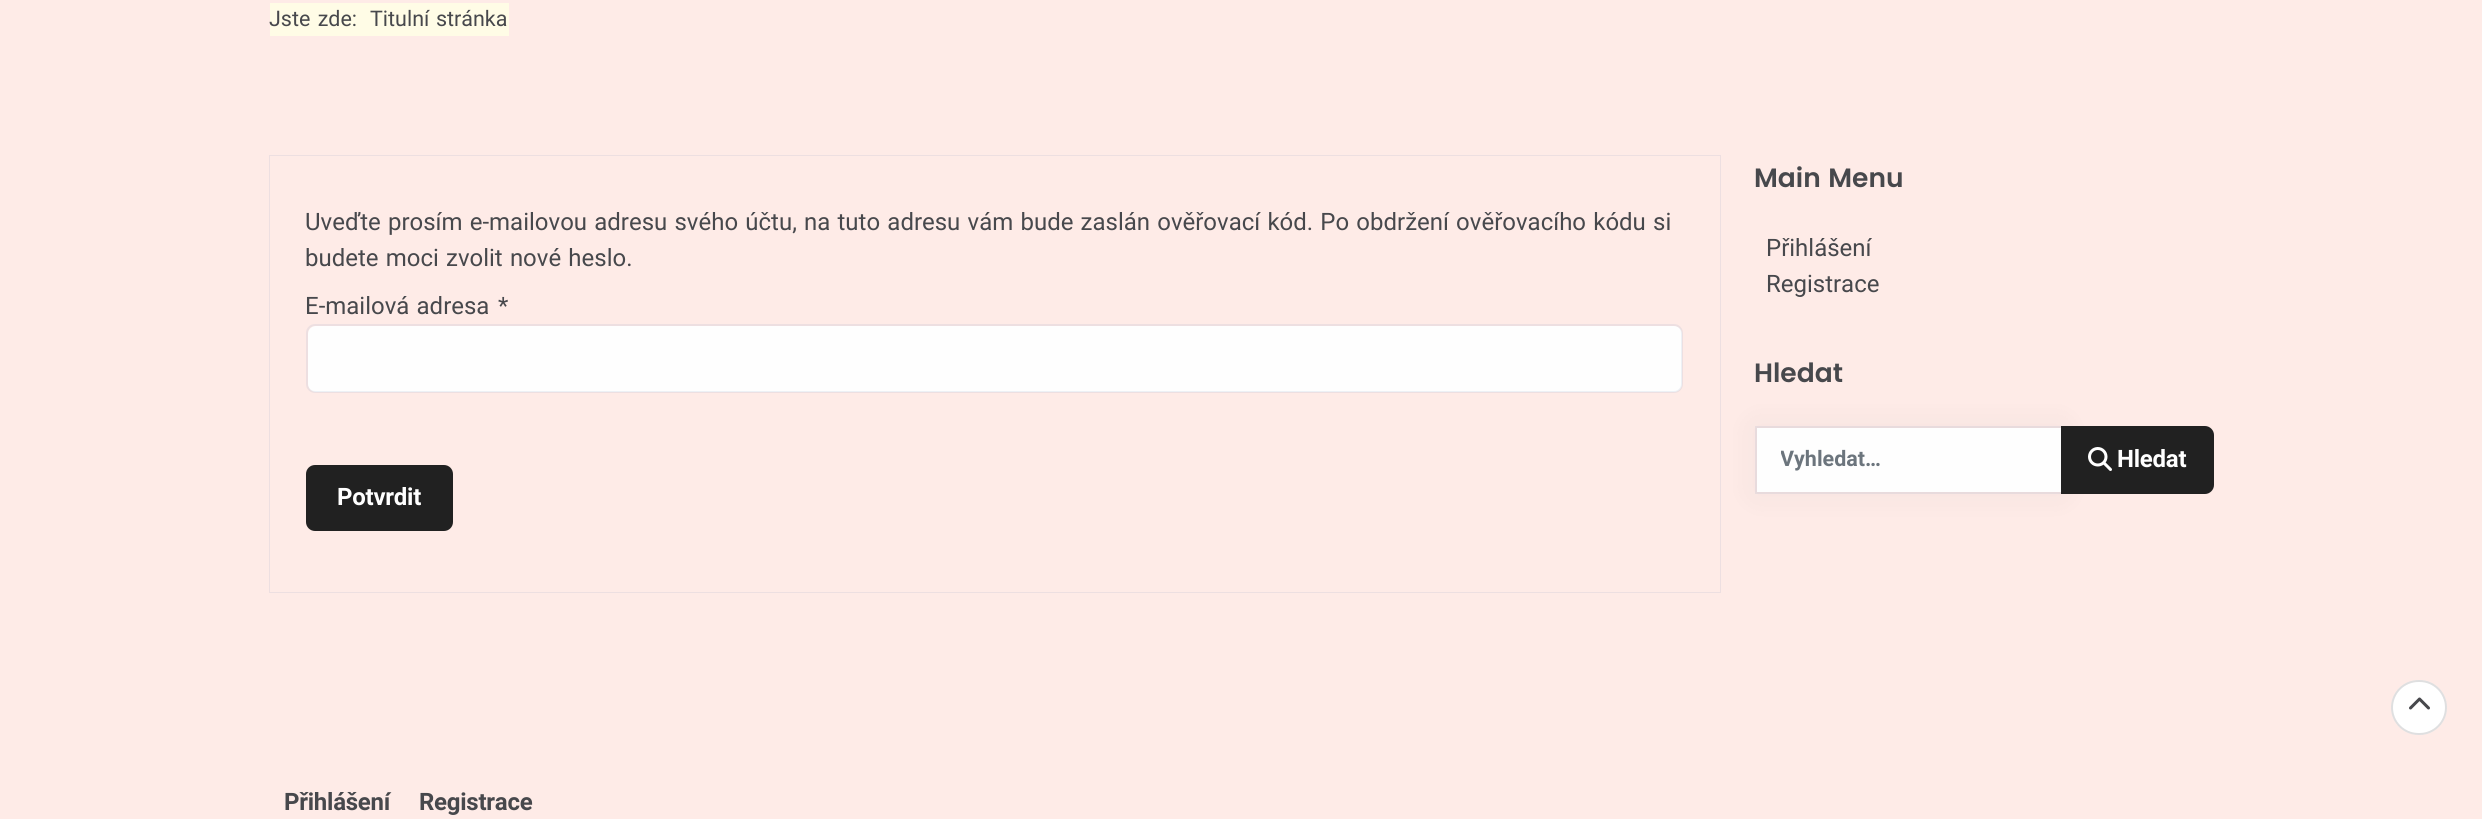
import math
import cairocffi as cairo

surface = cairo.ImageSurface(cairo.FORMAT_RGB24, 2482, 819)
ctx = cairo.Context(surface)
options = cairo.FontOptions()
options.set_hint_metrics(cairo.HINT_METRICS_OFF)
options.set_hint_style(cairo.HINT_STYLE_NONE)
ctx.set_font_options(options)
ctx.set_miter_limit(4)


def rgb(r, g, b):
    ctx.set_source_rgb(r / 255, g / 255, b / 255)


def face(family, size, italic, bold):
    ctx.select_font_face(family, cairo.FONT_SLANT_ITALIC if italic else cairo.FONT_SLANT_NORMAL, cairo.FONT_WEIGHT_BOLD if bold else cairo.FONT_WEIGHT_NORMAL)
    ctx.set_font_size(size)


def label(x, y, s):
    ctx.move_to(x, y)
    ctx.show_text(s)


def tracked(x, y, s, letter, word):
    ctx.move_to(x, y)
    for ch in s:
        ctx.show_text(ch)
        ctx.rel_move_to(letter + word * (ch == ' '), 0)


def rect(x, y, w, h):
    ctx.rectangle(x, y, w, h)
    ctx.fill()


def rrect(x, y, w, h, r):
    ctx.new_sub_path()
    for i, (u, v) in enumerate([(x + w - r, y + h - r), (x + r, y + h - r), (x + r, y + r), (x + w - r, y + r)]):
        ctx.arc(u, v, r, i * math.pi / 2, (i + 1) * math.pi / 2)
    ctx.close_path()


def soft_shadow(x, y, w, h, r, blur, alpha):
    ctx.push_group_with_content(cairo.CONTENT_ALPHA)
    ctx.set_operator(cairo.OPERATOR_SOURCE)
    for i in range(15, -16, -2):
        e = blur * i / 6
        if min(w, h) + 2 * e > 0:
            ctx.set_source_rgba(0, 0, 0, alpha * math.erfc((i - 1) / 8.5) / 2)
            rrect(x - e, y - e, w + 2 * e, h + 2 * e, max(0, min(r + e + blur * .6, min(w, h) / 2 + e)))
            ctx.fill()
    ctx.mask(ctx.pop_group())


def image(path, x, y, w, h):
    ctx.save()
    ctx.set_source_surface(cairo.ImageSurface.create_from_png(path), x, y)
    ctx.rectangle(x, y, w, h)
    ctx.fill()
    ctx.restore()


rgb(254, 235, 231)
ctx.paint()
rgb(255, 252, 230)
rect(270, 3, 239, 33)
face('Roboto', 21.5, 0, 0)
rgb(71, 72, 76)
tracked(269, 26, 'Jste zde:', 0, 2)
tracked(370, 26, 'Titulní stránka', 0, 1.25)
ctx.rectangle(269.5, 155.5, 1451, 437)
ctx.set_source_rgba(0.031, 0.235, 0.506, 0.07)
ctx.set_line_width(1)
ctx.stroke()
face('Roboto', 24, 0, 0)
rgb(71, 72, 76)
tracked(305, 230, 'Uveďte prosím e-mailovou adresu svého účtu, na tuto adresu vám bude zaslán ověřovací kód. Po obdržení ověřovacího kódu si', 0, 1.25)
tracked(305, 266, 'budete moci zvolit nové heslo.', 0, 1.25)
tracked(305, 314, 'E-mailová adresa', 0, 1.25)
label(498, 314, '*')
rgb(254, 254, 254)
rrect(308, 326, 1374, 66, 8)
ctx.fill()
rrect(307, 325, 1375, 67, 8)
ctx.set_source_rgba(0.031, 0.235, 0.51, 0.07)
ctx.set_line_width(2)
ctx.stroke()
rgb(33, 33, 33)
rrect(307.5, 466.5, 144, 63, 7.5)
ctx.fill_preserve()
ctx.set_line_width(3)
ctx.stroke()
face('Roboto', 24, 0, 1)
rgb(255, 255, 255)
tracked(337, 505, 'Potvrdit', -0.25, 0)
face('Poppins SemiBold', 26.5, 0, 0)
rgb(71, 72, 76)
tracked(1754, 187, 'Main Menu', 0, 1.25)
face('Roboto', 24, 0, 0)
label(1766, 256, 'Přihlášení')
label(1766, 292, 'Registrace')
face('Poppins SemiBold', 26.5, 0, 0)
label(1754, 382, 'Hledat')
rgb(30, 34, 39)
soft_shadow(1755, 426, 308, 68, 0, 15, 0.05)
rgb(254, 254, 254)
rect(1757, 428, 304, 64)
ctx.rectangle(1756, 427, 306, 66)
ctx.set_source_rgba(0.031, 0.235, 0.51, 0.07)
ctx.set_line_width(2)
ctx.stroke()
ctx.save()
ctx.rectangle(1781, 447, 256, 26)
ctx.clip()
face('Roboto', 21.5, 0, 1)
rgb(108, 117, 125)
label(1780, 466, 'Vyhledat…')
ctx.restore()
rgb(33, 33, 33)
ctx.new_path()
ctx.move_to(2062.5, 427.5)
ctx.line_to(2205, 427.5)
ctx.curve_to(2209, 427.5, 2212.5, 431, 2212.5, 435)
ctx.line_to(2212.5, 485)
ctx.curve_to(2212.5, 489, 2209, 492.5, 2205, 492.5)
ctx.line_to(2062.5, 492.5)
ctx.close_path()
ctx.fill_preserve()
ctx.set_line_width(3)
ctx.stroke()
image('image0.png', 2088, 447, 24, 24)
face('Roboto', 24, 0, 1)
rgb(255, 255, 255)
tracked(2117, 467, 'Hledat', -0.25, 0)
rrect(2391, 680, 56, 55, 27.5)
ctx.fill()
rrect(2392, 681, 54, 53, 26.5)
ctx.set_source_rgba(0.502, 0.51, 0.525, 0.25)
ctx.set_line_width(2)
ctx.stroke()
image('image1.png', 2409, 697, 21, 13)
rgb(71, 72, 76)
tracked(284, 810, 'Přihlášení', -0.25, 0)
tracked(419, 810, 'Registrace', -0.25, 0)
surface.write_to_png('render.png')
